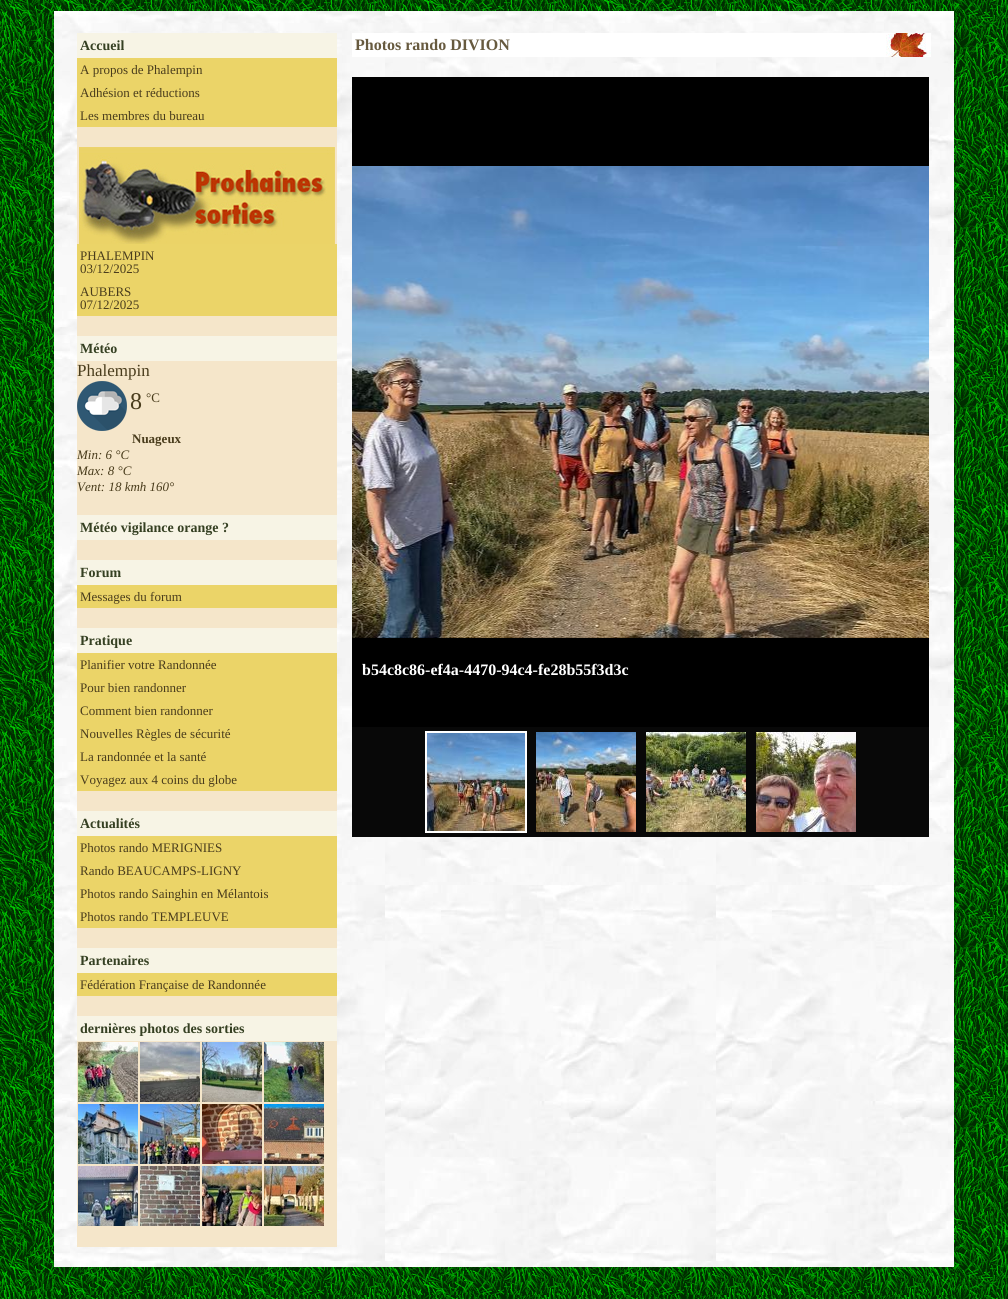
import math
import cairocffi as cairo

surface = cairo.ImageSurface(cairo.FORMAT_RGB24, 1008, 1299)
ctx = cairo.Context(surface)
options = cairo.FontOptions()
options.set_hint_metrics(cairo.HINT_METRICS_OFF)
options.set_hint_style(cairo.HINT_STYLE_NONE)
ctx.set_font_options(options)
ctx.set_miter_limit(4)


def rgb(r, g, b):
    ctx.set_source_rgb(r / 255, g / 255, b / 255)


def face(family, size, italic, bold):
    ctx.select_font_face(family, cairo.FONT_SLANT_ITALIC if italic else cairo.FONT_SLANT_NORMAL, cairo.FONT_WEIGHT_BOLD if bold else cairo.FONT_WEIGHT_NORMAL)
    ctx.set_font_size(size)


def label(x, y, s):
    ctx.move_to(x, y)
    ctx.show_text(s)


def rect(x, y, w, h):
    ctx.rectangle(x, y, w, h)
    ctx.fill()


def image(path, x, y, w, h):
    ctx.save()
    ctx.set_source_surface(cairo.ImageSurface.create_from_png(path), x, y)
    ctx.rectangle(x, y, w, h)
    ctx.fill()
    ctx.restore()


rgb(255, 255, 255)
ctx.paint()
image('image0.png', 0, 0, 1008, 1299)
image('image1.png', 54, 11, 900, 1256)
image('image2.png', 54, 0, 900, 11)
rgb(245, 230, 202)
rect(77, 127, 260, 1120)
rgb(247, 244, 229)
rect(77, 33, 260, 25)
face('Liberation Serif', 14, 0, 1)
rgb(53, 64, 34)
label(80, 50, 'Accueil')
rgb(235, 212, 104)
rect(77, 58, 260, 69)
face('Liberation Serif', 13, 0, 0)
rgb(73, 60, 28)
label(80, 74, 'A propos de Phalempin')
label(80, 97, 'Adhésion et réductions')
label(80, 120, 'Les membres du bureau')
image('image3.png', 79, 147, 256, 97)
rgb(235, 212, 104)
rect(77, 244, 260, 72)
rgb(73, 60, 28)
label(80, 260, 'PHALEMPIN')
label(80, 273, '03/12/2025')
label(80, 296, 'AUBERS')
label(80, 309, '07/12/2025')
rgb(247, 244, 229)
rect(77, 336, 260, 25)
face('Liberation Serif', 14, 0, 1)
rgb(53, 64, 34)
label(80, 353, 'Météo')
face('Liberation Serif', 17, 0, 0)
rgb(73, 60, 28)
label(77, 376, 'Phalempin')
image('image4.png', 77, 381, 50, 50)
face('Liberation Serif', 24, 0, 0)
label(130, 409, '8')
face('Liberation Serif', 13, 0, 0)
label(146, 402, '°C')
face('Liberation Serif', 13, 0, 1)
label(132, 443, 'Nuageux')
face('Liberation Serif', 13, 1, 0)
label(77, 459, 'Min: 6 °C')
label(77, 475, 'Max: 8 °C')
label(77, 491, 'Vent: 18 kmh 160°')
rgb(247, 244, 229)
rect(77, 515, 260, 25)
face('Liberation Serif', 14, 0, 1)
rgb(53, 64, 34)
label(80, 532, 'Météo vigilance orange ?')
rgb(247, 244, 229)
rect(77, 560, 260, 25)
rgb(53, 64, 34)
label(80, 577, 'Forum')
rgb(235, 212, 104)
rect(77, 585, 260, 23)
face('Liberation Serif', 13, 0, 0)
rgb(73, 60, 28)
label(80, 601, 'Messages du forum')
rgb(247, 244, 229)
rect(77, 628, 260, 25)
face('Liberation Serif', 14, 0, 1)
rgb(53, 64, 34)
label(80, 645, 'Pratique')
rgb(235, 212, 104)
rect(77, 653, 260, 138)
face('Liberation Serif', 13, 0, 0)
rgb(73, 60, 28)
label(80, 669, 'Planifier votre Randonnée')
label(80, 692, 'Pour bien randonner')
label(80, 715, 'Comment bien randonner')
label(80, 738, 'Nouvelles Règles de sécurité')
label(80, 761, 'La randonnée et la santé')
label(80, 784, 'Voyagez aux 4 coins du globe')
rgb(247, 244, 229)
rect(77, 811, 260, 25)
face('Liberation Serif', 14, 0, 1)
rgb(53, 64, 34)
label(80, 828, 'Actualités')
rgb(235, 212, 104)
rect(77, 836, 260, 92)
face('Liberation Serif', 13, 0, 0)
rgb(73, 60, 28)
label(80, 852, 'Photos rando MERIGNIES')
label(80, 875, 'Rando BEAUCAMPS-LIGNY')
label(80, 898, 'Photos rando Sainghin en Mélantois')
label(80, 921, 'Photos rando TEMPLEUVE')
rgb(247, 244, 229)
rect(77, 948, 260, 25)
face('Liberation Serif', 14, 0, 1)
rgb(53, 64, 34)
label(80, 965, 'Partenaires')
rgb(235, 212, 104)
rect(77, 973, 260, 23)
face('Liberation Serif', 13, 0, 0)
rgb(73, 60, 28)
label(80, 989, 'Fédération Française de Randonnée')
rgb(247, 244, 229)
rect(77, 1016, 260, 25)
face('Liberation Serif', 14, 0, 1)
rgb(53, 64, 34)
label(80, 1033, 'dernières photos des sorties')
image('image5.png', 78, 1042, 60, 60)
image('image6.png', 140, 1042, 60, 60)
image('image7.png', 202, 1042, 60, 60)
image('image8.png', 264, 1042, 60, 60)
image('image9.png', 78, 1104, 60, 60)
image('image10.png', 140, 1104, 60, 60)
image('image11.png', 202, 1104, 60, 60)
image('image12.png', 264, 1104, 60, 60)
image('image13.png', 78, 1166, 60, 60)
image('image14.png', 140, 1166, 60, 60)
image('image15.png', 202, 1166, 60, 60)
image('image16.png', 264, 1166, 60, 60)
image('image17.png', 352, 33, 579, 24)
face('Liberation Serif', 16, 0, 1)
rgb(103, 90, 63)
label(355, 50, 'Photos rando DIVION')
rgb(8, 8, 8)
rect(352, 727, 577, 110)
rgb(0, 0, 0)
rect(352, 77, 577, 650)
image('image18.png', 352, 166, 577, 472)
rgb(255, 255, 255)
label(362, 675, 'b54c8c86-ef4a-4470-94c4-fe28b55f3d3c')
image('image19.png', 427, 733, 98, 98)
ctx.rectangle(426, 732, 100, 100)
ctx.stroke()
image('image20.png', 536, 732, 100, 100)
image('image21.png', 646, 732, 100, 100)
image('image22.png', 756, 732, 100, 100)
image('image23.png', 54, 1267, 900, 28)
surface.write_to_png('render.png')
